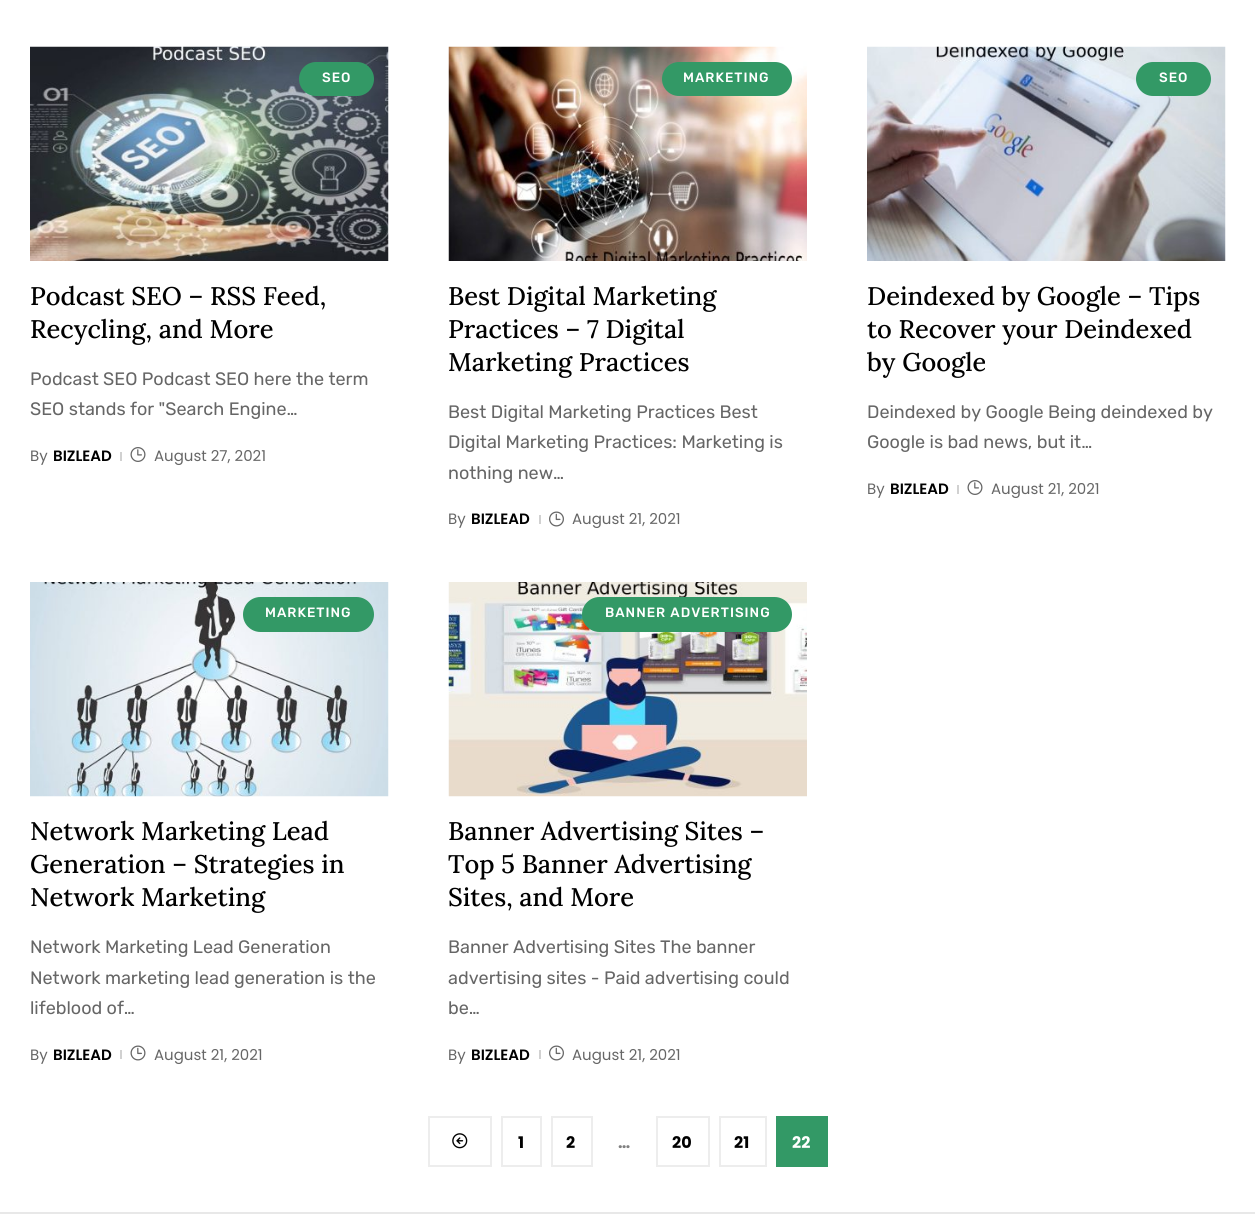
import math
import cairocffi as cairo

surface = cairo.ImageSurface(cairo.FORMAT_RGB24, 1255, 1219)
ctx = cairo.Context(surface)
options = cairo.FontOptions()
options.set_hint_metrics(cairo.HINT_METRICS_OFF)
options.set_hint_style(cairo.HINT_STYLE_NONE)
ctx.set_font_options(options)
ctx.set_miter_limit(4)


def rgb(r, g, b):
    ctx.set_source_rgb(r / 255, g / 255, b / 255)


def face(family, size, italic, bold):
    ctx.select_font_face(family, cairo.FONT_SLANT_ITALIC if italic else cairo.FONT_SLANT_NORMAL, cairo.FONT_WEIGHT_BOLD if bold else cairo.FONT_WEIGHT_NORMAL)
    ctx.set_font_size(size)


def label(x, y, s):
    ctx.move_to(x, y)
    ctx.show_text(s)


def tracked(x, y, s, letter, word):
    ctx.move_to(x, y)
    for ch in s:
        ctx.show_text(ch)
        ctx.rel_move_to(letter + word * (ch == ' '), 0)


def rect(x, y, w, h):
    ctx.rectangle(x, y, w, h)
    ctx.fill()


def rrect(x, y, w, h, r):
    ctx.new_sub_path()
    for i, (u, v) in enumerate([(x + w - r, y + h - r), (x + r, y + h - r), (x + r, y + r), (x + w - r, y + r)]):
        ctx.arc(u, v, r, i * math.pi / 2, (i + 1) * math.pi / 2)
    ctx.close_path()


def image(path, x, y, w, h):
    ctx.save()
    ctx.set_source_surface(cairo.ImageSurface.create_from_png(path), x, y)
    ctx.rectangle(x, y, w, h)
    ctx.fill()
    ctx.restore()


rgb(255, 255, 255)
ctx.paint()
image('image0.png', 30, 46, 359, 215)
rgb(51, 153, 102)
rrect(299, 62, 75, 34, 17)
ctx.fill()
face('Rubik Medium', 13.5, 0, 0)
rgb(255, 255, 255)
tracked(322, 82, 'SEO', 1, 0)
face('Lora Medium', 25.5, 0, 0)
rgb(0, 0, 0)
label(30, 305, 'Podcast SEO – RSS Feed,')
label(30, 338, 'Recycling, and More')
face('Rubik', 18, 0, 0)
rgb(102, 102, 102)
label(30, 385, 'Podcast SEO Podcast SEO here the term')
label(30, 415, 'SEO stands for "Search Engine…')
face('Poppins', 15, 0, 0)
label(30, 461, 'By')
face('Poppins SemiBold', 15, 0, 0)
rgb(0, 0, 0)
label(53, 461, 'BIZLEAD')
rgb(209, 209, 209)
rect(120, 452, 2, 9)
image('image1.png', 130, 447, 16, 15)
face('Poppins', 15, 0, 0)
rgb(102, 102, 102)
label(154, 461, 'August 27, 2021')
image('image2.png', 448, 46, 359, 215)
rgb(51, 153, 102)
rrect(662, 62, 130, 34, 17)
ctx.fill()
face('Rubik Medium', 13.5, 0, 0)
rgb(255, 255, 255)
tracked(683, 82, 'MARKETING', 1, 0)
face('Lora Medium', 25.5, 0, 0)
rgb(0, 0, 0)
label(448, 305, 'Best Digital Marketing')
label(448, 338, 'Practices – 7 Digital')
label(448, 371, 'Marketing Practices')
face('Rubik', 18, 0, 0)
rgb(102, 102, 102)
label(448, 418, 'Best Digital Marketing Practices Best')
label(448, 448, 'Digital Marketing Practices: Marketing is')
label(448, 479, 'nothing new…')
face('Poppins', 15, 0, 0)
label(448, 524, 'By')
face('Poppins SemiBold', 15, 0, 0)
rgb(0, 0, 0)
label(471, 524, 'BIZLEAD')
rgb(209, 209, 209)
rect(539, 515, 2, 9)
image('image3.png', 549, 511, 15, 16)
face('Poppins', 15, 0, 0)
rgb(102, 102, 102)
label(572, 524, 'August 21, 2021')
image('image4.png', 867, 46, 359, 215)
rgb(51, 153, 102)
rrect(1136, 62, 75, 34, 17)
ctx.fill()
face('Rubik Medium', 13.5, 0, 0)
rgb(255, 255, 255)
tracked(1159, 82, 'SEO', 1, 0)
face('Lora Medium', 25.5, 0, 0)
rgb(0, 0, 0)
label(867, 305, 'Deindexed by Google – Tips')
label(867, 338, 'to Recover your Deindexed')
label(867, 371, 'by Google')
face('Rubik', 18, 0, 0)
rgb(102, 102, 102)
label(867, 418, 'Deindexed by Google Being deindexed by')
label(867, 448, 'Google is bad news, but it…')
face('Poppins', 15, 0, 0)
label(867, 494, 'By')
face('Poppins SemiBold', 15, 0, 0)
rgb(0, 0, 0)
label(890, 494, 'BIZLEAD')
rgb(209, 209, 209)
rect(957, 485, 2, 9)
image('image1.png', 967, 480, 16, 15)
face('Poppins', 15, 0, 0)
rgb(102, 102, 102)
label(991, 494, 'August 21, 2021')
image('image5.png', 30, 582, 359, 215)
rgb(51, 153, 102)
rrect(243, 597, 131, 35, 17.5)
ctx.fill()
face('Rubik Medium', 13.5, 0, 0)
rgb(255, 255, 255)
tracked(265, 617, 'MARKETING', 1, 0)
face('Lora Medium', 25.5, 0, 0)
rgb(0, 0, 0)
label(30, 840, 'Network Marketing Lead')
label(30, 873, 'Generation – Strategies in')
label(30, 906, 'Network Marketing')
face('Rubik', 18, 0, 0)
rgb(102, 102, 102)
label(30, 953, 'Network Marketing Lead Generation')
label(30, 984, 'Network marketing lead generation is the')
label(30, 1014, 'lifeblood of…')
face('Poppins', 15, 0, 0)
label(30, 1060, 'By')
face('Poppins SemiBold', 15, 0, 0)
rgb(0, 0, 0)
label(53, 1060, 'BIZLEAD')
rgb(209, 209, 209)
rect(120, 1050, 2, 9)
image('image6.png', 130, 1045, 16, 16)
face('Poppins', 15, 0, 0)
rgb(102, 102, 102)
label(154, 1060, 'August 21, 2021')
image('image7.png', 448, 582, 359, 215)
rgb(51, 153, 102)
rrect(582, 597, 210, 35, 17.5)
ctx.fill()
face('Rubik Medium', 13.5, 0, 0)
rgb(255, 255, 255)
tracked(605, 617, 'BANNER ADVERTISING', 1, 0)
face('Lora Medium', 25.5, 0, 0)
rgb(0, 0, 0)
label(448, 840, 'Banner Advertising Sites –')
label(448, 873, 'Top 5 Banner Advertising')
label(448, 906, 'Sites, and More')
face('Rubik', 18, 0, 0)
rgb(102, 102, 102)
label(448, 953, 'Banner Advertising Sites The banner')
label(448, 984, 'advertising sites - Paid advertising could')
label(448, 1014, 'be…')
face('Poppins', 15, 0, 0)
label(448, 1060, 'By')
face('Poppins SemiBold', 15, 0, 0)
rgb(0, 0, 0)
label(471, 1060, 'BIZLEAD')
rgb(209, 209, 209)
rect(539, 1050, 2, 9)
image('image3.png', 549, 1045, 15, 16)
face('Poppins', 15, 0, 0)
rgb(102, 102, 102)
label(572, 1060, 'August 21, 2021')
ctx.rectangle(429, 1117, 62, 49)
rgb(237, 237, 237)
ctx.stroke()
image('image8.png', 452, 1133, 16, 16)
ctx.rectangle(502, 1117, 39, 49)
ctx.stroke()
face('Poppins', 16, 0, 1)
rgb(0, 0, 0)
label(518, 1148, '1')
ctx.rectangle(552, 1117, 40, 49)
rgb(237, 237, 237)
ctx.stroke()
rgb(0, 0, 0)
label(566, 1148, '2')
rgb(128, 128, 128)
label(618, 1148, '…')
ctx.rectangle(657, 1117, 52, 49)
rgb(237, 237, 237)
ctx.stroke()
rgb(0, 0, 0)
label(672, 1148, '20')
ctx.rectangle(720, 1117, 46, 49)
rgb(237, 237, 237)
ctx.stroke()
rgb(0, 0, 0)
label(734, 1148, '21')
rgb(51, 153, 102)
rect(776, 1116, 52, 51)
rgb(255, 255, 255)
label(792, 1148, '22')
rgb(232, 232, 232)
rect(0, 1212, 1255, 2)
surface.write_to_png('render.png')
